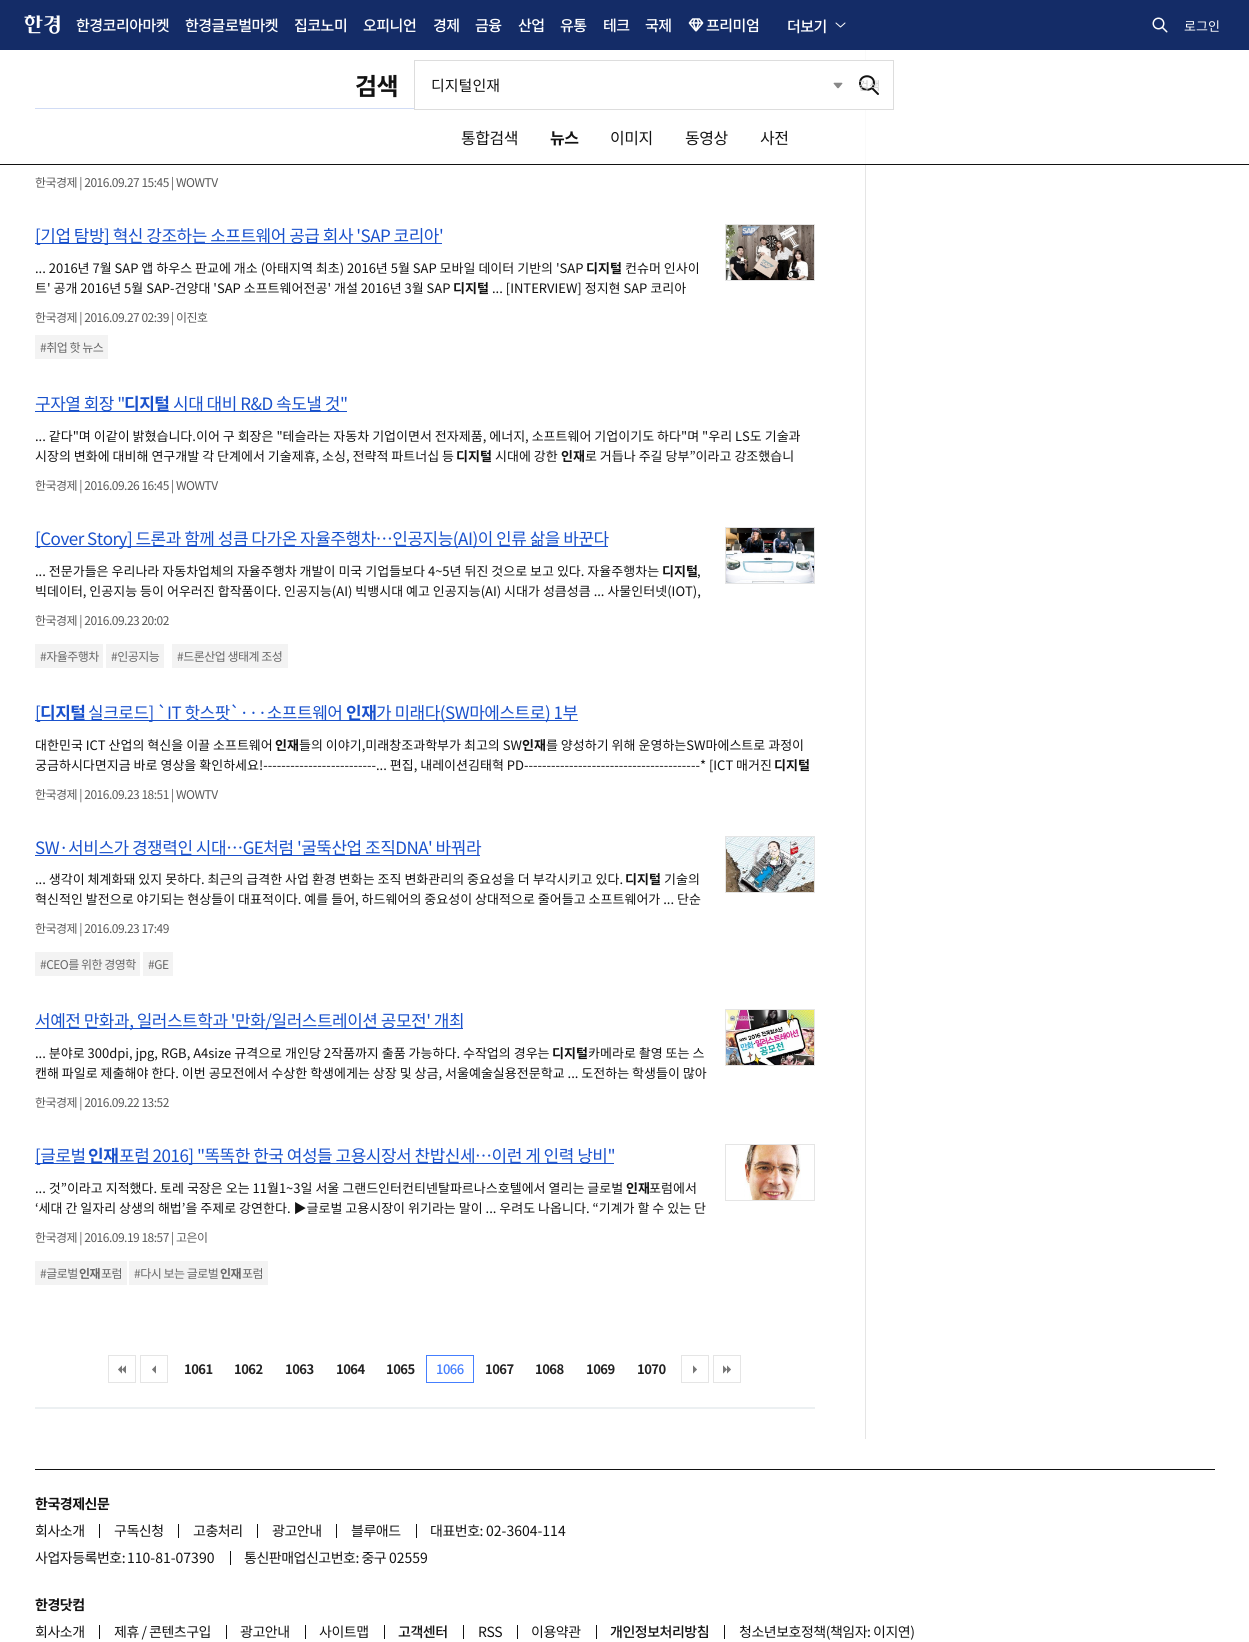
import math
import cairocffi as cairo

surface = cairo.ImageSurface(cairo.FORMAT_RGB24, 1249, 1642)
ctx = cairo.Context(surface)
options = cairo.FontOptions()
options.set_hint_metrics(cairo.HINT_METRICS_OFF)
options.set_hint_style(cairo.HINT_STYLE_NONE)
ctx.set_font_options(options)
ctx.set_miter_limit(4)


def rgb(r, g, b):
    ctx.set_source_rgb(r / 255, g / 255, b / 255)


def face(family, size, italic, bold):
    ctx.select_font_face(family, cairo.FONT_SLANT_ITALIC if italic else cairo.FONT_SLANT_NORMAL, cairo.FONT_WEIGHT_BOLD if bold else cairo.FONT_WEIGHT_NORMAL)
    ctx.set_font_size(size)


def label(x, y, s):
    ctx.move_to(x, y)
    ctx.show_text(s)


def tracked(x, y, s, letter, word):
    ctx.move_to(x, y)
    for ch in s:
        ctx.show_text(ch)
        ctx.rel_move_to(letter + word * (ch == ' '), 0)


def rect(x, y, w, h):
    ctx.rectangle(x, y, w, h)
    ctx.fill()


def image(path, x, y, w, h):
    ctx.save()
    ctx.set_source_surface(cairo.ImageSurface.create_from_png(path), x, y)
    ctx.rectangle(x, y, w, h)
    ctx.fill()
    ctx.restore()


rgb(255, 255, 255)
ctx.paint()
rgb(229, 229, 229)
rect(865, 50, 1, 1389)
rgb(18, 18, 18)
rect(0, 164, 1249, 1)
rgb(20, 44, 103)
rect(0, 0, 1249, 50)
image('image0.png', 24, 15, 36, 19)
face('Noto Sans KR Medium', 15, 0, 0)
rgb(255, 255, 255)
tracked(76, 31, '한경코리아마켓', -0.5, 0)
tracked(185, 31, '한경글로벌마켓', -0.5, 0)
tracked(294, 31, '집코노미', -0.5, 0)
tracked(363, 31, '오피니언', -0.5, 0)
tracked(433, 31, '경제', -0.5, 0)
tracked(475, 31, '금융', -0.5, 0)
tracked(518, 31, '산업', -0.5, 0)
tracked(560, 31, '유통', -0.5, 0)
tracked(603, 31, '테크', -0.5, 0)
tracked(645, 31, '국제', -0.5, 0)
image('image1.png', 688, 18, 16, 14)
tracked(706, 31, '프리미엄', -0.5, 0)
tracked(787, 32, '더보기', -0.5, 0)
ctx.new_path()
ctx.move_to(836, 23)
ctx.line_to(840.5, 27)
ctx.line_to(845, 23)
ctx.set_line_width(1)
ctx.set_line_cap(cairo.LINE_CAP_ROUND)
ctx.set_line_join(cairo.LINE_JOIN_ROUND)
ctx.stroke()
image('image2.png', 1152, 17, 16, 16)
face('Noto Sans KR', 13, 0, 0)
label(1184, 31, '로그인')
rgb(25, 81, 204)
rect(35, 108, 379, 1)
ctx.set_source_rgba(1, 1, 1, 0.8)
rect(35, 50, 831, 114)
face('Noto Sans KR', 24, 0, 1)
rgb(18, 18, 18)
tracked(355, 95, '검색', -0.5, 0)
rgb(255, 255, 255)
rect(865, 61, 1, 48)
ctx.rectangle(414.5, 60.5, 479, 49)
rgb(221, 221, 221)
ctx.set_line_cap(cairo.LINE_CAP_BUTT)
ctx.set_line_join(cairo.LINE_JOIN_MITER)
ctx.stroke()
face('Noto Sans KR', 15, 0, 0)
rgb(18, 18, 18)
label(431, 91, '디지털인재')
image('image3.png', 833, 82, 10, 7)
ctx.new_path()
ctx.move_to(878, 94)
ctx.line_to(872, 88)
ctx.move_to(874, 83)
ctx.curve_to(874, 92, 860, 92, 860, 83)
ctx.curve_to(860, 74, 874, 74, 874, 83)
ctx.close_path()
ctx.set_line_width(2)
ctx.set_line_cap(cairo.LINE_CAP_ROUND)
ctx.set_line_join(cairo.LINE_JOIN_ROUND)
ctx.stroke()
face('Noto Sans KR', 12, 0, 0)
rgb(203, 203, 203)
label(858, 90, '검색')
face('Noto Sans KR', 16, 0, 0)
rgb(18, 18, 18)
tracked(461, 144, '통합검색', -0.5, 0)
face('Noto Sans KR', 16, 0, 1)
tracked(550, 144, '뉴스', -0.5, 0)
face('Noto Sans KR', 16, 0, 0)
tracked(610, 144, '이미지', -0.5, 0)
tracked(685, 144, '동영상', -0.5, 0)
tracked(760, 144, '사전', -0.5, 0)
face('Noto Sans KR', 12, 0, 0)
rgb(88, 88, 88)
tracked(35, 187, '한국경제 | 2016.09.27 15:45 | WOWTV', -0.5, 0)
rgb(25, 81, 204)
rect(35, 243, 407, 1)
face('Noto Sans KR', 17, 0, 0)
tracked(35, 242, '[기업 탐방] 혁신 강조하는 소프트웨어 공급 회사 \'SAP 코리아\'', -0.5, 0)
ctx.rectangle(725.5, 224.5, 89, 56)
rgb(229, 229, 229)
ctx.set_line_width(1)
ctx.set_line_cap(cairo.LINE_CAP_BUTT)
ctx.set_line_join(cairo.LINE_JOIN_MITER)
ctx.stroke()
image('image4.png', 726, 225, 88, 55)
face('Noto Sans KR', 13, 0, 0)
rgb(18, 18, 18)
label(35, 273, '... 2016년 7월 SAP 앱 하우스 판교에 개소 (아태지역 최초) 2016년 5월 SAP 모바일 데이터 기반의 \'SAP')
face('Noto Sans KR', 13, 0, 1)
label(586, 273, '디지털')
face('Noto Sans KR', 13, 0, 0)
label(625, 273, '컨슈머 인사이')
label(35, 293, '트\' 공개 2016년 5월 SAP-건양대 \'SAP 소프트웨어전공\' 개설 2016년 3월 SAP')
face('Noto Sans KR', 13, 0, 1)
label(453, 293, '디지털')
face('Noto Sans KR', 13, 0, 0)
label(492, 293, '... [INTERVIEW] 정지현 SAP 코리아')
face('Noto Sans KR', 12, 0, 0)
rgb(88, 88, 88)
tracked(35, 322, '한국경제 | 2016.09.27 02:39 | 이진호', -0.5, 0)
rgb(243, 243, 243)
rect(35, 335, 73, 24)
rgb(102, 102, 102)
tracked(40, 352, '#취업 핫 뉴스', -0.5, 0)
rgb(25, 81, 204)
rect(35, 411, 312, 1)
face('Noto Sans KR', 17, 0, 0)
tracked(35, 410, '구자열 회장 "', -0.5, 0)
face('Noto Sans KR', 17, 0, 1)
tracked(124, 410, '디지털', -0.5, 0)
face('Noto Sans KR', 17, 0, 0)
tracked(173, 410, '시대 대비 R&D 속도낼 것"', -0.5, 0)
face('Noto Sans KR', 13, 0, 0)
rgb(18, 18, 18)
label(35, 441, '... 같다"며 이같이 밝혔습니다.이어 구 회장은 "테슬라는 자동차 기업이면서 전자제품, 에너지, 소프트웨어 기업이기도 하다"며 "우리 LS도 기술과')
label(35, 461, '시장의 변화에 대비해 연구개발 각 단계에서 기술제휴, 소싱, 전략적 파트너십 등')
face('Noto Sans KR', 13, 0, 1)
label(456, 461, '디지털')
face('Noto Sans KR', 13, 0, 0)
label(495, 461, '시대에 강한')
face('Noto Sans KR', 13, 0, 1)
label(561, 461, '인재')
face('Noto Sans KR', 13, 0, 0)
label(585, 461, '로 거듭나 주길 당부”이라고 강조했습니')
face('Noto Sans KR', 12, 0, 0)
rgb(88, 88, 88)
tracked(35, 490, '한국경제 | 2016.09.26 16:45 | WOWTV', -0.5, 0)
rgb(25, 81, 204)
rect(35, 546, 573, 1)
face('Noto Sans KR', 17, 0, 0)
tracked(35, 545, '[Cover Story] 드론과 함께 성큼 다가온 자율주행차…인공지능(AI)이 인류 삶을 바꾼다', -0.5, 0)
ctx.rectangle(725.5, 527.5, 89, 56)
rgb(229, 229, 229)
ctx.stroke()
image('image5.png', 726, 528, 88, 55)
face('Noto Sans KR', 13, 0, 0)
rgb(18, 18, 18)
label(35, 576, '... 전문가들은 우리나라 자동차업체의 자율주행차 개발이 미국 기업들보다 4~5년 뒤진 것으로 보고 있다. 자율주행차는')
face('Noto Sans KR', 13, 0, 1)
label(662, 576, '디지털')
face('Noto Sans KR', 13, 0, 0)
label(697, 576, ',')
label(35, 596, '빅데이터, 인공지능 등이 어우러진 합작품이다. 인공지능(AI) 빅뱅시대 예고 인공지능(AI) 시대가 성큼성큼 ... 사물인터넷(IOT),')
face('Noto Sans KR', 12, 0, 0)
rgb(88, 88, 88)
tracked(35, 625, '한국경제 | 2016.09.23 20:02', -0.5, 0)
rgb(243, 243, 243)
rect(35, 644, 68, 24)
rgb(102, 102, 102)
tracked(40, 661, '#자율주행차', -0.5, 0)
rgb(243, 243, 243)
rect(106, 644, 58, 24)
rgb(102, 102, 102)
tracked(111, 661, '#인공지능', -0.5, 0)
rgb(243, 243, 243)
rect(172, 644, 116, 24)
rgb(102, 102, 102)
tracked(177, 661, '#드론산업 생태계 조성', -0.5, 0)
rgb(25, 81, 204)
rect(35, 720, 543, 1)
face('Noto Sans KR', 17, 0, 0)
tracked(35, 719, '[', -0.5, 0)
face('Noto Sans KR', 17, 0, 1)
tracked(40, 719, '디지털', -0.5, 0)
face('Noto Sans KR', 17, 0, 0)
tracked(88, 719, '실크로드] `IT 핫스팟`···소프트웨어', -0.5, 0)
face('Noto Sans KR', 17, 0, 1)
tracked(346, 719, '인재', -0.5, 0)
face('Noto Sans KR', 17, 0, 0)
tracked(376, 719, '가 미래다(SW마에스트로) 1부', -0.5, 0)
face('Noto Sans KR', 13, 0, 0)
rgb(18, 18, 18)
label(35, 750, '대한민국 ICT 산업의 혁신을 이끌 소프트웨어')
face('Noto Sans KR', 13, 0, 1)
label(275, 750, '인재')
face('Noto Sans KR', 13, 0, 0)
label(299, 750, '들의 이야기,미래창조과학부가 최고의 SW')
face('Noto Sans KR', 13, 0, 1)
label(522, 750, '인재')
face('Noto Sans KR', 13, 0, 0)
label(546, 750, '를 양성하기 위해 운영하는SW마에스트로 과정이')
label(35, 770, '궁금하시다면지금 바로 영상을 확인하세요!-------------------------... 편집, 내레이션김태혁 PD---------------------------------------* [ICT 매거진')
face('Noto Sans KR', 13, 0, 1)
label(774, 770, '디지털')
face('Noto Sans KR', 12, 0, 0)
rgb(88, 88, 88)
tracked(35, 799, '한국경제 | 2016.09.23 18:51 | WOWTV', -0.5, 0)
rgb(25, 81, 204)
rect(35, 855, 445, 1)
face('Noto Sans KR', 17, 0, 0)
tracked(35, 854, 'SW·서비스가 경쟁력인 시대…GE처럼 \'굴뚝산업 조직DNA\' 바꿔라', -0.5, 0)
ctx.rectangle(725.5, 836.5, 89, 56)
rgb(229, 229, 229)
ctx.stroke()
image('image6.png', 726, 837, 88, 55)
face('Noto Sans KR', 13, 0, 0)
rgb(18, 18, 18)
label(35, 884, '... 생각이 체계화돼 있지 못하다. 최근의 급격한 사업 환경 변화는 조직 변화관리의 중요성을 더 부각시키고 있다.')
face('Noto Sans KR', 13, 0, 1)
label(625, 884, '디지털')
face('Noto Sans KR', 13, 0, 0)
label(664, 884, '기술의')
label(35, 904, '혁신적인 발전으로 야기되는 현상들이 대표적이다. 예를 들어, 하드웨어의 중요성이 상대적으로 줄어들고 소프트웨어가 ... 단순')
face('Noto Sans KR', 12, 0, 0)
rgb(88, 88, 88)
tracked(35, 933, '한국경제 | 2016.09.23 17:49', -0.5, 0)
rgb(243, 243, 243)
rect(35, 952, 105, 24)
rgb(102, 102, 102)
tracked(40, 969, '#CEO를 위한 경영학', -0.5, 0)
rgb(243, 243, 243)
rect(143, 952, 30, 24)
rgb(102, 102, 102)
tracked(148, 969, '#GE', -0.5, 0)
rgb(25, 81, 204)
rect(35, 1028, 428, 1)
face('Noto Sans KR', 17, 0, 0)
tracked(35, 1027, '서예전 만화과, 일러스트학과 \'만화/일러스트레이션 공모전\' 개최', -0.5, 0)
ctx.rectangle(725.5, 1009.5, 89, 56)
rgb(229, 229, 229)
ctx.stroke()
image('image7.png', 726, 1010, 88, 55)
face('Noto Sans KR', 13, 0, 0)
rgb(18, 18, 18)
label(35, 1058, '... 분야로 300dpi, jpg, RGB, A4size 규격으로 개인당 2작품까지 출품 가능하다. 수작업의 경우는')
face('Noto Sans KR', 13, 0, 1)
label(552, 1058, '디지털')
face('Noto Sans KR', 13, 0, 0)
label(588, 1058, '카메라로 촬영 또는 스')
label(35, 1078, '캔해 파일로 제출해야 한다. 이번 공모전에서 수상한 학생에게는 상장 및 상금, 서울예술실용전문학교 ... 도전하는 학생들이 많아')
face('Noto Sans KR', 12, 0, 0)
rgb(88, 88, 88)
tracked(35, 1107, '한국경제 | 2016.09.22 13:52', -0.5, 0)
rgb(25, 81, 204)
rect(35, 1163, 579, 1)
face('Noto Sans KR', 17, 0, 0)
tracked(35, 1162, '[글로벌', -0.5, 0)
face('Noto Sans KR', 17, 0, 1)
tracked(88, 1162, '인재', -0.5, 0)
face('Noto Sans KR', 17, 0, 0)
tracked(119, 1162, '포럼 2016] "똑똑한 한국 여성들 고용시장서 찬밥신세…이런 게 인력 낭비"', -0.5, 0)
ctx.rectangle(725.5, 1144.5, 89, 56)
rgb(229, 229, 229)
ctx.stroke()
image('image8.png', 744, 1145, 57, 55)
face('Noto Sans KR', 13, 0, 0)
rgb(18, 18, 18)
label(35, 1193, '... 것”이라고 지적했다. 토레 국장은 오는 11월1~3일 서울 그랜드인터컨티넨탈파르나스호텔에서 열리는 글로벌')
face('Noto Sans KR', 13, 0, 1)
label(626, 1193, '인재')
face('Noto Sans KR', 13, 0, 0)
label(649, 1193, '포럼에서')
label(35, 1213, '‘세대 간 일자리 상생의 해법’을 주제로 강연한다. ▶글로벌 고용시장이 위기라는 말이 ... 우려도 나옵니다. “기계가 할 수 있는 단')
face('Noto Sans KR', 12, 0, 0)
rgb(88, 88, 88)
tracked(35, 1242, '한국경제 | 2016.09.19 18:57 | 고은이', -0.5, 0)
rgb(243, 243, 243)
rect(35, 1261, 92, 24)
rgb(102, 102, 102)
tracked(40, 1278, '#글로벌', -0.5, 0)
face('Noto Sans KR', 12, 0, 1)
tracked(79, 1278, '인재', -0.5, 0)
face('Noto Sans KR', 12, 0, 0)
tracked(101, 1278, '포럼', -0.5, 0)
rgb(243, 243, 243)
rect(129, 1261, 139, 24)
rgb(102, 102, 102)
tracked(134, 1278, '#다시 보는 글로벌', -0.5, 0)
face('Noto Sans KR', 12, 0, 1)
tracked(220, 1278, '인재', -0.5, 0)
face('Noto Sans KR', 12, 0, 0)
tracked(242, 1278, '포럼', -0.5, 0)
image('image9.png', 118, 1365, 8, 9)
ctx.rectangle(108.5, 1355.5, 27, 27)
rgb(229, 229, 229)
ctx.stroke()
image('image10.png', 152, 1365, 4, 9)
ctx.rectangle(140.5, 1355.5, 27, 27)
ctx.stroke()
face('Noto Sans KR', 13, 0, 1)
rgb(34, 34, 34)
tracked(184, 1374, '1061', -0.5, 0)
tracked(234, 1374, '1062', -0.5, 0)
tracked(285, 1374, '1063', -0.5, 0)
tracked(336, 1374, '1064', -0.5, 0)
tracked(386, 1374, '1065', -0.5, 0)
ctx.rectangle(426.5, 1355.5, 47, 27)
rgb(69, 127, 255)
ctx.stroke()
face('Noto Sans KR Medium', 13, 0, 0)
tracked(436, 1374, '1066', -0.5, 0)
face('Noto Sans KR', 13, 0, 1)
rgb(34, 34, 34)
tracked(485, 1374, '1067', -0.5, 0)
tracked(535, 1374, '1068', -0.5, 0)
tracked(586, 1374, '1069', -0.5, 0)
tracked(637, 1374, '1070', -0.5, 0)
image('image11.png', 693, 1365, 4, 9)
ctx.rectangle(681.5, 1355.5, 27, 27)
rgb(229, 229, 229)
ctx.stroke()
image('image12.png', 723, 1365, 8, 9)
ctx.rectangle(713.5, 1355.5, 27, 27)
ctx.stroke()
rgb(236, 240, 242)
rect(35, 1407, 780, 2)
rgb(18, 18, 18)
rect(35, 1469, 1180, 1)
face('Noto Sans KR', 14, 0, 1)
tracked(35, 1509, '한국경제신문', -0.5, 0)
face('Noto Sans KR', 14, 0, 0)
tracked(35, 1536, '회사소개', -0.5, 0)
rect(99, 1524, 1, 14)
tracked(114, 1536, '구독신청', -0.5, 0)
rect(178, 1524, 1, 14)
tracked(193, 1536, '고충처리', -0.5, 0)
rect(257, 1524, 1, 14)
tracked(272, 1536, '광고안내', -0.5, 0)
rect(336, 1524, 1, 14)
tracked(351, 1536, '블루애드', -0.5, 0)
rect(416, 1524, 1, 14)
tracked(430, 1536, '대표번호:', -0.5, 0)
label(486, 1536, '02-3604-114')
tracked(35, 1563, '사업자등록번호:', -0.5, 0)
label(127, 1563, '110-81-07390')
rect(230, 1551, 1, 14)
tracked(244, 1563, '통신판매업신고번호: 중구', -0.5, 0)
label(389, 1563, '02559')
face('Noto Sans KR', 14, 0, 1)
tracked(35, 1610, '한경닷컴', -0.5, 0)
face('Noto Sans KR', 14, 0, 0)
tracked(35, 1637, '회사소개', -0.5, 0)
rect(99, 1625, 1, 14)
tracked(114, 1637, '제휴 / 콘텐츠구입', -0.5, 0)
rect(226, 1625, 1, 14)
tracked(240, 1637, '광고안내', -0.5, 0)
rect(305, 1625, 1, 14)
tracked(319, 1637, '사이트맵', -0.5, 0)
rect(384, 1625, 1, 14)
face('Noto Sans KR Medium', 14, 0, 0)
tracked(398, 1637, '고객센터', -0.5, 0)
rect(463, 1625, 1, 14)
face('Noto Sans KR', 14, 0, 0)
tracked(478, 1637, 'RSS', -0.5, 0)
rect(517, 1625, 1, 14)
tracked(531, 1637, '이용약관', -0.5, 0)
rect(596, 1625, 1, 14)
face('Noto Sans KR Medium', 14, 0, 0)
tracked(610, 1637, '개인정보처리방침', -0.5, 0)
rect(724, 1625, 1, 14)
face('Noto Sans KR', 14, 0, 0)
tracked(739, 1637, '청소년보호정책(책임자: 이지연)', -0.5, 0)
surface.write_to_png('render.png')
